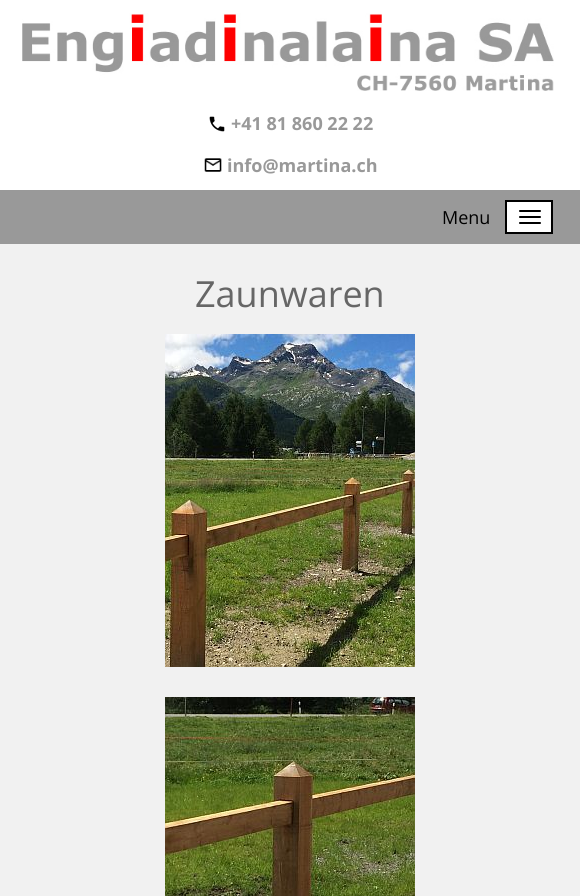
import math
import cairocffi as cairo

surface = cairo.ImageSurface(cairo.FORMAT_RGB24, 580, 896)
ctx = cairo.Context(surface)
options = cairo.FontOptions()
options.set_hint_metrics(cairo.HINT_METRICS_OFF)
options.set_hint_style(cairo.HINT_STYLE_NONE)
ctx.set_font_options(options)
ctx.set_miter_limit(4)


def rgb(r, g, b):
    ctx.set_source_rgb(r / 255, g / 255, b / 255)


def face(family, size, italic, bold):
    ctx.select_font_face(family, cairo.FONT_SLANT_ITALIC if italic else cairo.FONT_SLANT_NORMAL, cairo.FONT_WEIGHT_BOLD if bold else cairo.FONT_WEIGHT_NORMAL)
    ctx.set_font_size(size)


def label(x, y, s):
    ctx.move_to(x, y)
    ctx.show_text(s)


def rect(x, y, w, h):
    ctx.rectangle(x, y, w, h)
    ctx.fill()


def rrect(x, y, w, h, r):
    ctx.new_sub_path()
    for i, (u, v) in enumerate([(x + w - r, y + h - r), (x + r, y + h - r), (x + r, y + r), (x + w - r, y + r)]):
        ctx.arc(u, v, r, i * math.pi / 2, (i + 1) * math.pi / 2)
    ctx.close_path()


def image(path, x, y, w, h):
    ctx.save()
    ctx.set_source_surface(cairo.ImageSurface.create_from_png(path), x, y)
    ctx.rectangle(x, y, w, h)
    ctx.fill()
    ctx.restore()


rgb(241, 241, 241)
ctx.paint()
rgb(255, 255, 255)
rect(0, 0, 580, 190)
image('image0.png', 22, 13, 532, 78)
image('image1.png', 209, 116, 16, 16)
face('Open Sans', 18, 0, 1)
rgb(153, 153, 153)
label(231, 130, '+41 81 860 22 22')
image('image2.png', 204, 158, 18, 14)
label(227, 172, 'info@martina.ch')
rect(0, 190, 580, 54)
face('Open Sans', 18, 0, 0)
rgb(0, 0, 0)
label(442, 224, 'Menu')
rgb(255, 255, 255)
ctx.rectangle(506, 201, 46, 32)
ctx.fill_preserve()
rgb(0, 0, 0)
ctx.stroke()
rrect(519, 210, 22, 2, 1)
ctx.fill()
rrect(519, 216, 22, 2, 1)
ctx.fill()
rrect(519, 222, 22, 2, 1)
ctx.fill()
face('Open Sans', 36, 0, 0)
rgb(102, 102, 102)
label(195, 307, 'Zaunwaren')
image('image3.png', 165, 334, 250, 333)
image('image4.png', 165, 697, 250, 199)
surface.write_to_png('render.png')
